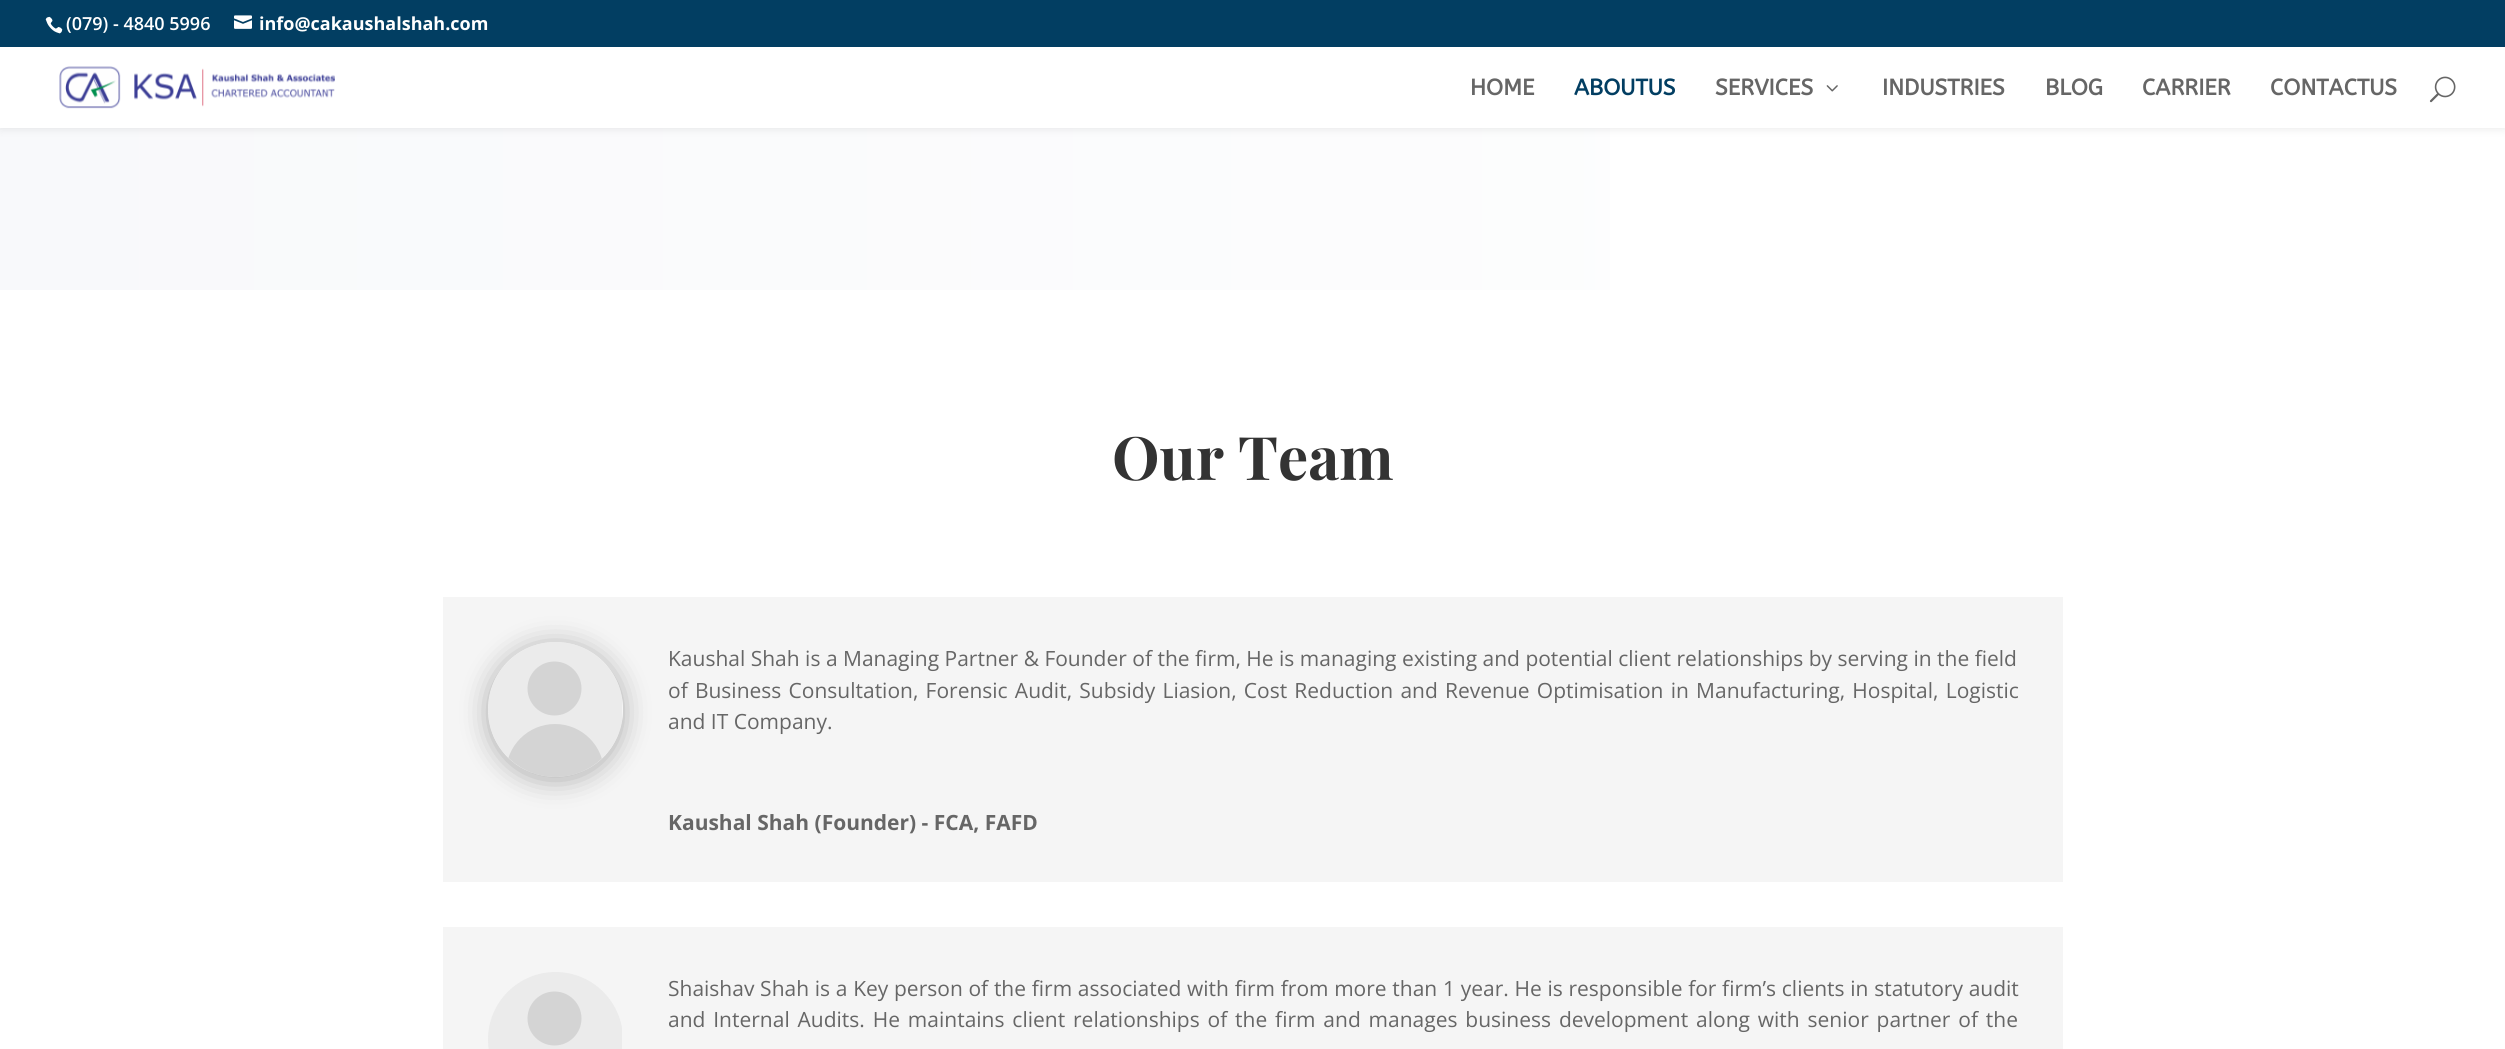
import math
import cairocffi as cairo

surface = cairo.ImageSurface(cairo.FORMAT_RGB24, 2505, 1049)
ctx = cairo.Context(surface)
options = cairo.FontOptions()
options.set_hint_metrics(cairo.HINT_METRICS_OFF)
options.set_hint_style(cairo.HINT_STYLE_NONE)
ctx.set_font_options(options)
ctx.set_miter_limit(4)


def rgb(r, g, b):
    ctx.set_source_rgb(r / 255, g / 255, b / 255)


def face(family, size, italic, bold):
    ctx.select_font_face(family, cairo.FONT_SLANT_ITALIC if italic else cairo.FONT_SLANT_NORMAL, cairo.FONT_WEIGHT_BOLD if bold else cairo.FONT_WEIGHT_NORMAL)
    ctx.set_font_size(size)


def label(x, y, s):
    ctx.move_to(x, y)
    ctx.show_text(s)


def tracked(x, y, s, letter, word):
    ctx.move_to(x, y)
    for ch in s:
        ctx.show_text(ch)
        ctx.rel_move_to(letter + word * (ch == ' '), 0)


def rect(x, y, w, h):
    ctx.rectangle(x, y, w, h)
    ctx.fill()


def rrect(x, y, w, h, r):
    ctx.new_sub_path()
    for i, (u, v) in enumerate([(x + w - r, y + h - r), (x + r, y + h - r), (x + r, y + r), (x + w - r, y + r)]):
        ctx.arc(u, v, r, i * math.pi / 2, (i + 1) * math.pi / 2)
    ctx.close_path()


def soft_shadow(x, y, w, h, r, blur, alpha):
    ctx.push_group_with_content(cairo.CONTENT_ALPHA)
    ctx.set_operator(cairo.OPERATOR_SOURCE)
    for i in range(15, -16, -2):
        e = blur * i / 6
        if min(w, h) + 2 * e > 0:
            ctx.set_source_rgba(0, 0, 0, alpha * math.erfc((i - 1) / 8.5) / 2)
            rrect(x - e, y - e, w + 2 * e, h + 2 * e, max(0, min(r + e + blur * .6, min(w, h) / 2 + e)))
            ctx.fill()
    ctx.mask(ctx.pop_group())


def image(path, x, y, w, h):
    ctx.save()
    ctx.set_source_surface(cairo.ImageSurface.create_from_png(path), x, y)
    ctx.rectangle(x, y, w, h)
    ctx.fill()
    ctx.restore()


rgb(255, 255, 255)
ctx.paint()
gradient = cairo.LinearGradient(0, -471, 2505, -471)
gradient.add_color_stop_rgba(0, 0.973, 0.976, 0.984, 1)
gradient.add_color_stop_rgba(1, 1, 1, 1, 1)
ctx.set_source(gradient)
rect(0, 128, 1610, 162)
rgb(0, 0, 0)
soft_shadow(0, 47, 2505, 81, 0, 5, 0.1)
rgb(2, 62, 98)
rect(0, 0, 2505, 47)
image('image0.png', 45, 16, 18, 18)
face('Open Sans SemiBold', 18, 0, 0)
rgb(255, 255, 255)
label(66, 30, '(079) - 4840 5996')
image('image1.png', 234, 15, 18, 14)
face('Open Sans', 18, 0, 1)
label(259, 30, 'info@cakaushalshah.com')
rect(0, 47, 2505, 81)
image('image2.png', 59, 66, 276, 43)
face('ABeeZee', 22.5, 0, 1)
rgb(102, 102, 102)
label(1470, 95, 'HOME')
rgb(2, 62, 98)
label(1574, 95, 'ABOUTUS')
rgb(102, 102, 102)
label(1715, 95, 'SERVICES')
image('image3.png', 1826, 85, 12, 7)
label(1882, 95, 'INDUSTRIES')
label(2045, 95, 'BLOG')
label(2142, 95, 'CARRIER')
label(2270, 95, 'CONTACTUS')
image('image4.png', 2429, 76, 27, 27)
face('Playfair Display', 60, 0, 1)
rgb(51, 51, 51)
label(1112, 480, 'Our Team')
rgb(245, 245, 245)
rect(443, 597, 1620, 285)
ctx.save()
rrect(488, 642, 135, 135, 67.5)
ctx.clip()
rgb(235, 235, 235)
ctx.new_path()
ctx.move_to(555.5, 642)
ctx.line_to(622, 642)
ctx.line_to(622, 777)
ctx.line_to(555.5, 777)
ctx.curve_to(518, 777, 488, 747, 488, 709.5)
ctx.curve_to(488, 672, 518, 642, 555.5, 642)
ctx.close_path()
ctx.fill()
ctx.set_source_rgba(0, 0, 0, 0.1)
ctx.new_path()
ctx.move_to(555, 724)
ctx.curve_to(582, 724, 604, 746, 604, 773)
ctx.line_to(604, 777)
ctx.line_to(506, 777)
ctx.line_to(506, 773)
ctx.curve_to(506, 746, 528, 724, 555, 724)
ctx.close_path()
ctx.fill()
ctx.restore()
rgb(212, 212, 212)
ctx.arc(554.5, 688.5, 27, 0, 2 * math.pi)
ctx.fill()
ctx.save()
ctx.set_fill_rule(cairo.FILL_RULE_EVEN_ODD)
ctx.new_path()
ctx.move_to(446, 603)
ctx.line_to(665, 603)
ctx.line_to(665, 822)
ctx.line_to(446, 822)
ctx.close_path()
ctx.move_to(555.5, 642)
ctx.curve_to(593, 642, 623, 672, 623, 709.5)
ctx.curve_to(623, 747, 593, 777, 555.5, 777)
ctx.curve_to(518, 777, 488, 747, 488, 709.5)
ctx.curve_to(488, 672, 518, 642, 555.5, 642)
ctx.close_path()
ctx.clip()
rgb(0, 0, 0)
soft_shadow(488, 645, 135, 135, 67.5, 13.5, 0.3)
ctx.restore()
face('Open Sans', 21, 0, 0)
rgb(102, 102, 102)
label(668, 666, 'Kaushal Shah is a Managing Partner & Founder of the firm, He is managing existing and potential client relationships by serving in the field')
tracked(668, 698, 'of Business Consultation, Forensic Audit, Subsidy Liasion, Cost Reduction and Revenue Optimisation in Manufacturing, Hospital, Logistic', 0, 1.75)
label(668, 729, 'and IT Company.')
face('Open Sans', 21, 0, 1)
label(668, 830, 'Kaushal Shah (Founder) - FCA, FAFD')
rgb(245, 245, 245)
rect(443, 927, 1620, 122)
ctx.save()
rrect(488, 972, 135, 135, 67.5)
ctx.clip()
rgb(235, 235, 235)
ctx.new_path()
ctx.move_to(555.5, 972)
ctx.line_to(622, 972)
ctx.line_to(622, 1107)
ctx.line_to(555.5, 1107)
ctx.curve_to(518, 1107, 488, 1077, 488, 1039.5)
ctx.curve_to(488, 1002, 518, 972, 555.5, 972)
ctx.close_path()
ctx.fill()
ctx.restore()
rgb(212, 212, 212)
ctx.arc(554.5, 1018.5, 27, 0, 2 * math.pi)
ctx.fill()
face('Open Sans', 21, 0, 0)
rgb(102, 102, 102)
tracked(668, 996, 'Shaishav Shah is a Key person of the firm associated with firm from more than 1 year. He is responsible for firm’s clients in statutory audit', 0, 0.25)
tracked(668, 1027, 'and Internal Audits. He maintains client relationships of the firm and manages business development along with senior partner of the', 0, 2.4)
surface.write_to_png('render.png')
